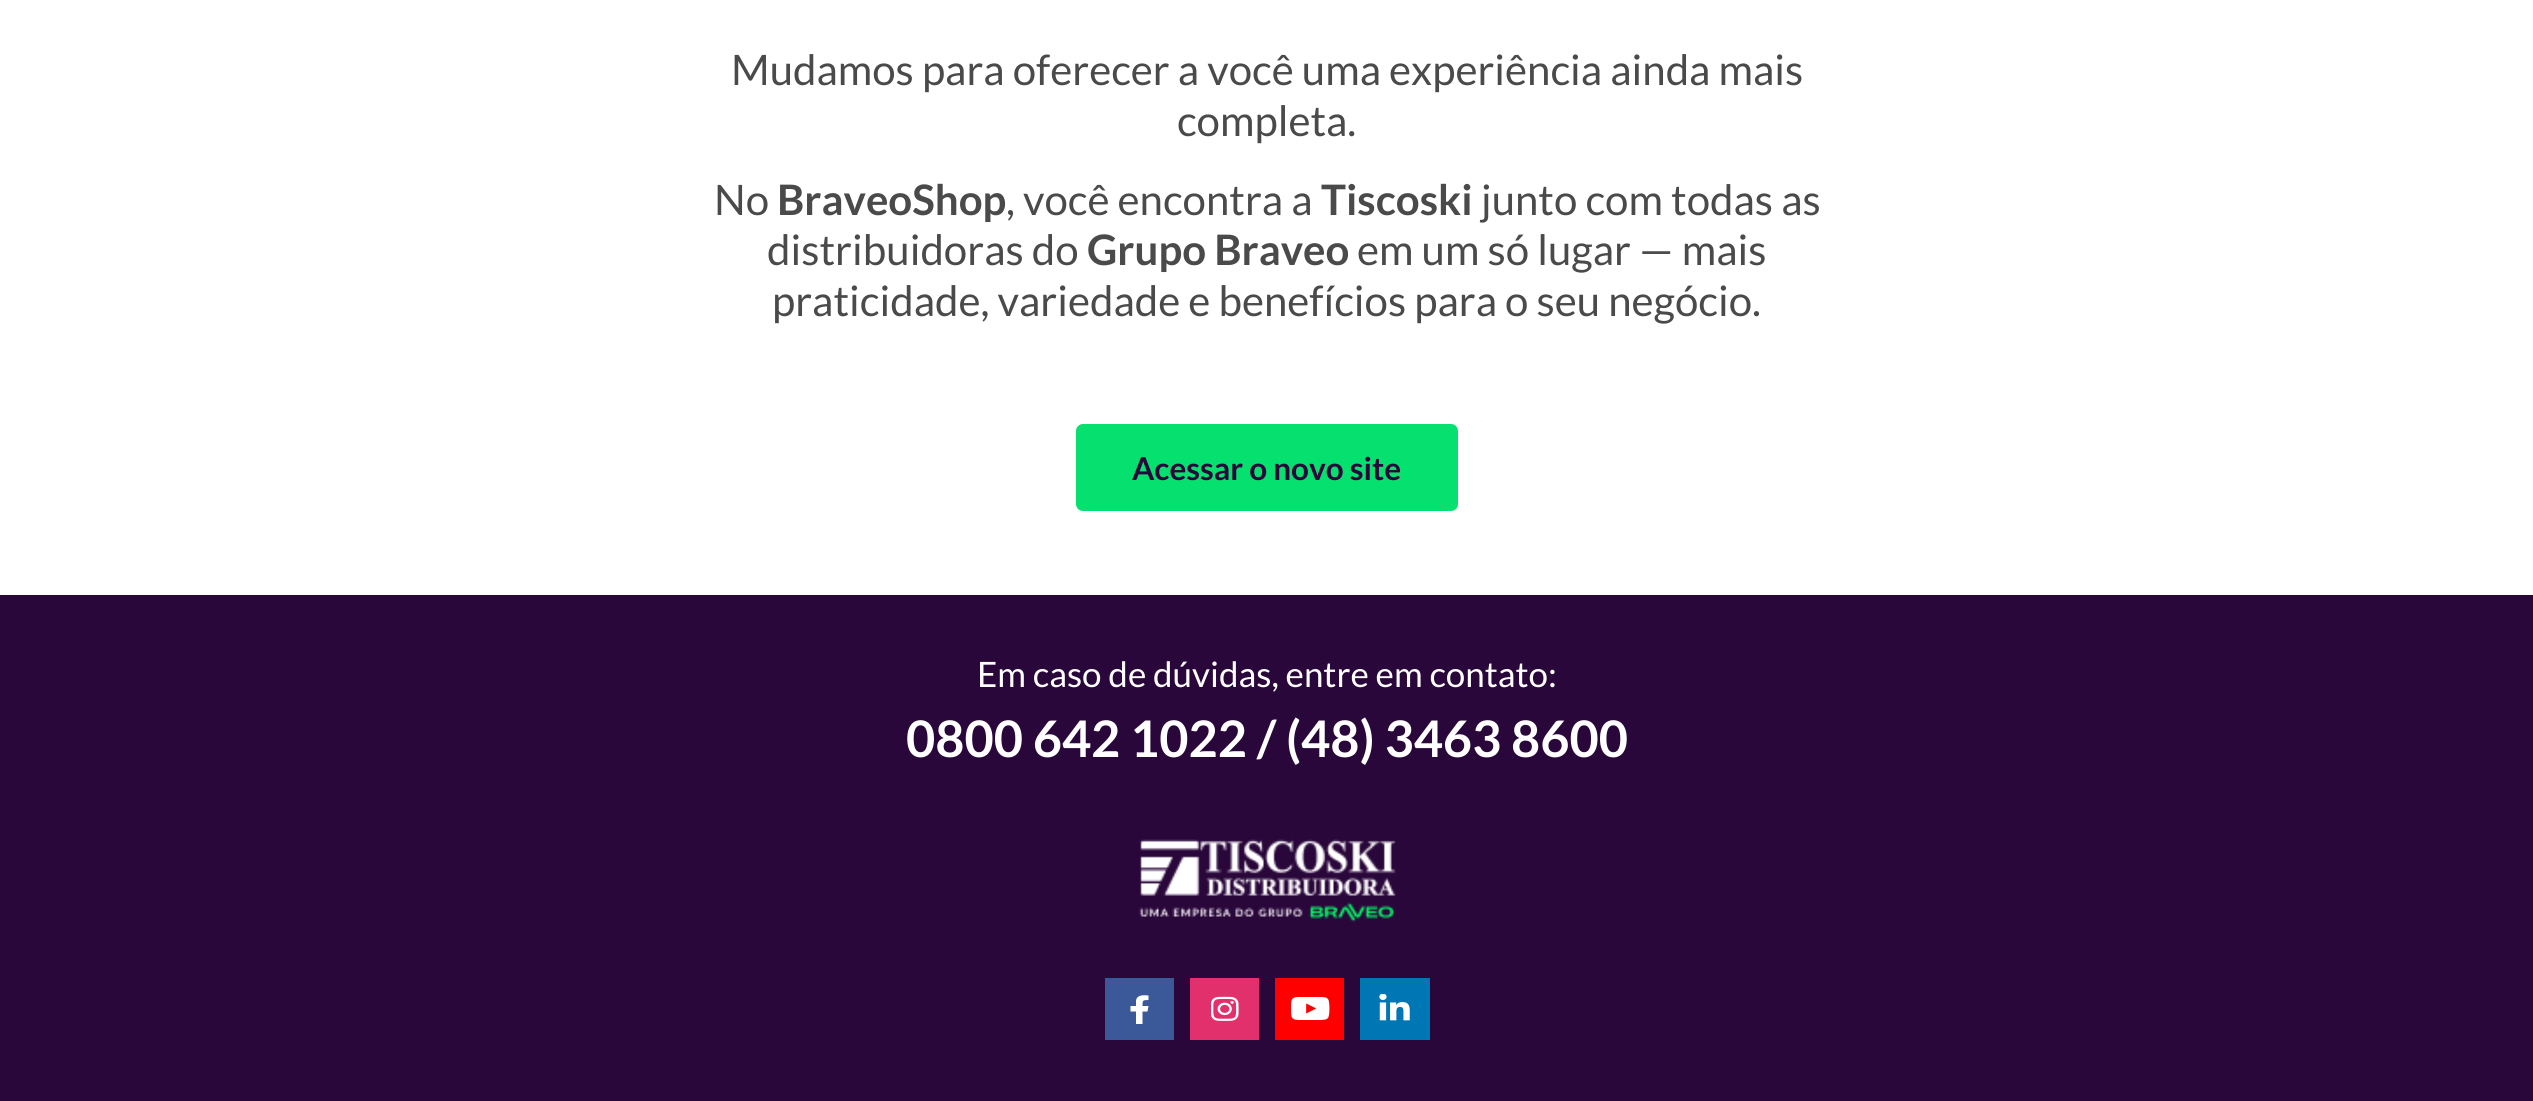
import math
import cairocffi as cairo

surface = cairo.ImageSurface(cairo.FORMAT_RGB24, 2533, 1101)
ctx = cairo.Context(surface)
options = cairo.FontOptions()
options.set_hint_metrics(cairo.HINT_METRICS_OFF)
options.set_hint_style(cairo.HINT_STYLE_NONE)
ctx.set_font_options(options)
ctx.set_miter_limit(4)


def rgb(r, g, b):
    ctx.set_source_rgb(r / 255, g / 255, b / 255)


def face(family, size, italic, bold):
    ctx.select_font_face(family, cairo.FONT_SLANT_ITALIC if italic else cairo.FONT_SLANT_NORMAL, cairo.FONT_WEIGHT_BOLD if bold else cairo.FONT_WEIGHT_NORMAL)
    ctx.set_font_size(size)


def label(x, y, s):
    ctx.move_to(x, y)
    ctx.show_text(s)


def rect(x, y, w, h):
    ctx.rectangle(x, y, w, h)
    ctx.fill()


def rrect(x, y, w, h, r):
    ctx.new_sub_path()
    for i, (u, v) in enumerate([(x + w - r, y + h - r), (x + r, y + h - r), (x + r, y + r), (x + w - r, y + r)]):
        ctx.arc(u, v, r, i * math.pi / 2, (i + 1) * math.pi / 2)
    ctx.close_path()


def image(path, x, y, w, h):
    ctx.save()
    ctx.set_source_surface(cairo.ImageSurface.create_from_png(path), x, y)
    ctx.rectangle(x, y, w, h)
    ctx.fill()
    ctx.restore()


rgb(255, 255, 255)
ctx.paint()
face('Lato', 42, 0, 0)
rgb(74, 74, 74)
label(731, 85, 'Mudamos para oferecer a você uma experiência ainda mais')
label(1177, 136, 'completa.')
label(714, 215, 'No')
face('Lato', 42, 0, 1)
label(777, 215, 'BraveoShop')
face('Lato', 42, 0, 0)
label(1006, 215, ', você encontra a')
face('Lato', 42, 0, 1)
label(1321, 215, 'Tiscoski')
face('Lato', 42, 0, 0)
label(1481, 215, 'junto com todas as')
label(767, 265, 'distribuidoras do')
face('Lato', 42, 0, 1)
label(1087, 265, 'Grupo Braveo')
face('Lato', 42, 0, 0)
label(1357, 265, 'em um só lugar — mais')
label(772, 316, 'praticidade, variedade e benefícios para o seu negócio.')
rgb(5, 224, 111)
rrect(1076, 424, 382, 87, 7)
ctx.fill()
face('Lato', 31.5, 0, 1)
rgb(42, 7, 59)
label(1132, 480, 'Acessar o novo site')
rect(0, 595, 2533, 506)
face('Lato', 35, 0, 0)
rgb(255, 255, 255)
label(977, 687, 'Em caso de dúvidas, entre em contato:')
face('Lato', 50.4, 0, 1)
label(906, 757, '0800 642 1022 / (48) 3463 8600')
image('image0.png', 1139, 839, 257, 83)
rgb(59, 89, 152)
rect(1105, 978, 69, 62)
rgb(255, 255, 255)
ctx.new_path()
ctx.move_to(1147.5, 1011.5)
ctx.line_to(1148.5, 1006)
ctx.line_to(1142.5, 1006)
ctx.curve_to(1142.5, 1000.5, 1142.5, 1000, 1148.5, 1000)
ctx.line_to(1148.5, 995.5)
ctx.curve_to(1144, 995, 1137, 994.5, 1136, 1000.5)
ctx.line_to(1136, 1006)
ctx.line_to(1130.5, 1006)
ctx.line_to(1130.5, 1011.5)
ctx.line_to(1136, 1011.5)
ctx.line_to(1136, 1024)
ctx.line_to(1142.5, 1024)
ctx.line_to(1142.5, 1011.5)
ctx.close_path()
ctx.fill()
image('image1.png', 1190, 978, 69, 62)
image('image2.png', 1275, 978, 69, 62)
image('image3.png', 1360, 978, 70, 62)
surface.write_to_png('render.png')
